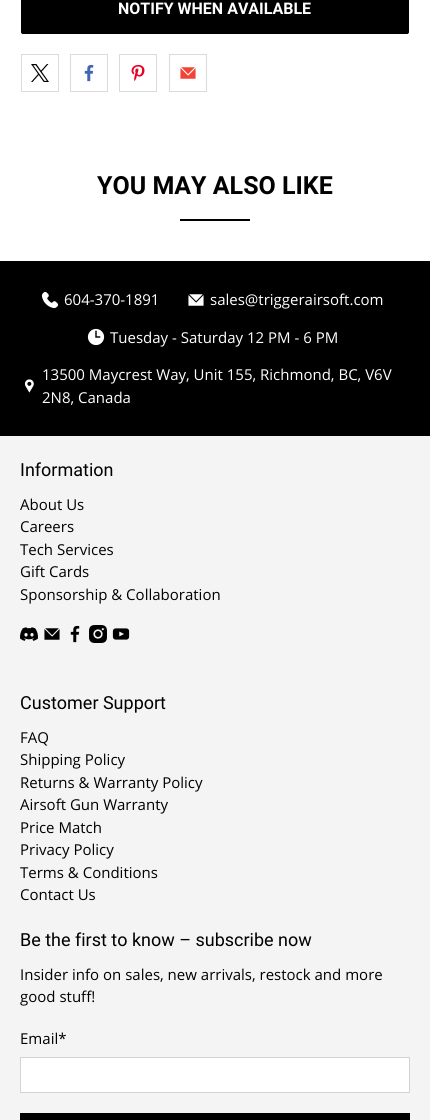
import math
import cairocffi as cairo

surface = cairo.ImageSurface(cairo.FORMAT_RGB24, 430, 1120)
ctx = cairo.Context(surface)
options = cairo.FontOptions()
options.set_hint_metrics(cairo.HINT_METRICS_OFF)
options.set_hint_style(cairo.HINT_STYLE_NONE)
ctx.set_font_options(options)
ctx.set_miter_limit(4)


def rgb(r, g, b):
    ctx.set_source_rgb(r / 255, g / 255, b / 255)


def face(family, size, italic, bold):
    ctx.select_font_face(family, cairo.FONT_SLANT_ITALIC if italic else cairo.FONT_SLANT_NORMAL, cairo.FONT_WEIGHT_BOLD if bold else cairo.FONT_WEIGHT_NORMAL)
    ctx.set_font_size(size)


def label(x, y, s):
    ctx.move_to(x, y)
    ctx.show_text(s)


def rect(x, y, w, h):
    ctx.rectangle(x, y, w, h)
    ctx.fill()


def rrect(x, y, w, h, r):
    ctx.new_sub_path()
    for i, (u, v) in enumerate([(x + w - r, y + h - r), (x + r, y + h - r), (x + r, y + r), (x + w - r, y + r)]):
        ctx.arc(u, v, r, i * math.pi / 2, (i + 1) * math.pi / 2)
    ctx.close_path()


def image(path, x, y, w, h):
    ctx.save()
    ctx.set_source_surface(cairo.ImageSurface.create_from_png(path), x, y)
    ctx.rectangle(x, y, w, h)
    ctx.fill()
    ctx.restore()


rgb(255, 255, 255)
ctx.paint()
rgb(0, 0, 0)
rrect(21.5, -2.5, 387, 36, 1.5)
ctx.fill_preserve()
ctx.set_line_width(1)
ctx.stroke()
face('Roboto', 16, 0, 1)
rgb(255, 255, 255)
label(118, 14, 'NOTIFY WHEN AVAILABLE')
ctx.rectangle(21.5, 54.5, 37, 37)
rgb(219, 219, 219)
ctx.stroke()
image('image0.png', 31, 64, 18, 18)
ctx.rectangle(70.5, 54.5, 37, 37)
ctx.stroke()
image('image1.png', 84, 64, 10, 18)
ctx.rectangle(119.5, 54.5, 37, 37)
ctx.stroke()
image('image2.png', 131, 64, 14, 17)
ctx.rectangle(169.5, 54.5, 37, 37)
ctx.stroke()
image('image3.png', 180, 67, 16, 12)
face('Roboto', 25, 0, 1)
rgb(0, 0, 0)
label(97, 194, 'YOU MAY ALSO LIKE')
rect(180, 219, 70, 2)
rect(0, 261, 430, 175)
image('image4.png', 41, 291, 18, 18)
face('Open Sans', 15, 0, 0)
rgb(255, 255, 255)
label(64, 305, '604-370-1891')
image('image5.png', 188, 294, 16, 12)
label(210, 305, 'sales@triggerairsoft.com')
image('image6.png', 87, 328, 18, 18)
label(110, 343, 'Tuesday - Saturday 12 PM - 6 PM')
image('image7.png', 24, 379, 10, 14)
label(42, 380, '13500 Maycrest Way, Unit 155, Richmond, BC, V6V')
label(42, 403, '2N8, Canada')
rgb(244, 244, 244)
rect(0, 436, 430, 684)
face('Roboto', 18, 0, 0)
rgb(0, 0, 0)
label(20, 476, 'Information')
face('Open Sans', 15, 0, 0)
label(20, 510, 'About Us')
label(20, 532, 'Careers')
label(20, 555, 'Tech Services')
label(20, 577, 'Gift Cards')
label(20, 600, 'Sponsorship & Collaboration')
image('image8.png', 20, 627, 18, 14)
image('image9.png', 44, 628, 16, 12)
image('image10.png', 70, 625, 10, 18)
image('image11.png', 89, 625, 18, 18)
image('image12.png', 112, 628, 18, 12)
face('Roboto', 18, 0, 0)
label(20, 709, 'Customer Support')
face('Open Sans', 15, 0, 0)
label(20, 743, 'FAQ')
label(20, 765, 'Shipping Policy')
label(20, 788, 'Returns & Warranty Policy')
label(20, 810, 'Airsoft Gun Warranty')
label(20, 833, 'Price Match')
label(20, 855, 'Privacy Policy')
label(20, 878, 'Terms & Conditions')
label(20, 900, 'Contact Us')
face('Roboto', 18, 0, 0)
label(20, 946, 'Be the first to know – subscribe now')
face('Open Sans', 15, 0, 0)
label(20, 980, 'Insider info on sales, new arrivals, restock and more')
label(20, 1002, 'good stuff!')
label(20, 1044, 'Email*')
rgb(255, 255, 255)
ctx.rectangle(20.5, 1057.5, 389, 35)
ctx.fill_preserve()
rgb(211, 211, 211)
ctx.stroke()
rgb(0, 0, 0)
rect(20, 1113, 390, 7)
surface.write_to_png('render.png')
